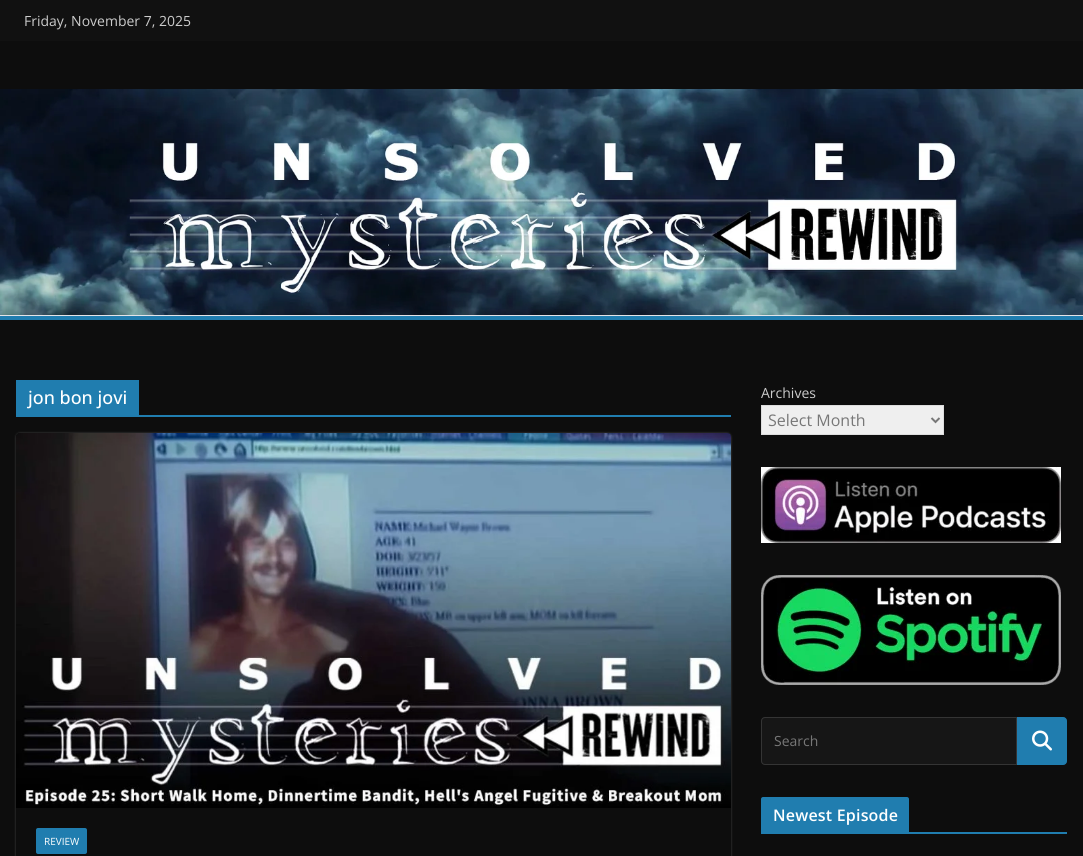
import math
import cairocffi as cairo

surface = cairo.ImageSurface(cairo.FORMAT_RGB24, 1083, 856)
ctx = cairo.Context(surface)
options = cairo.FontOptions()
options.set_hint_metrics(cairo.HINT_METRICS_OFF)
options.set_hint_style(cairo.HINT_STYLE_NONE)
ctx.set_font_options(options)
ctx.set_miter_limit(4)


def rgb(r, g, b):
    ctx.set_source_rgb(r / 255, g / 255, b / 255)


def face(family, size, italic, bold):
    ctx.select_font_face(family, cairo.FONT_SLANT_ITALIC if italic else cairo.FONT_SLANT_NORMAL, cairo.FONT_WEIGHT_BOLD if bold else cairo.FONT_WEIGHT_NORMAL)
    ctx.set_font_size(size)


def label(x, y, s):
    ctx.move_to(x, y)
    ctx.show_text(s)


def tracked(x, y, s, letter, word):
    ctx.move_to(x, y)
    for ch in s:
        ctx.show_text(ch)
        ctx.rel_move_to(letter + word * (ch == ' '), 0)


def rect(x, y, w, h):
    ctx.rectangle(x, y, w, h)
    ctx.fill()


def rrect(x, y, w, h, r):
    ctx.new_sub_path()
    for i, (u, v) in enumerate([(x + w - r, y + h - r), (x + r, y + h - r), (x + r, y + r), (x + w - r, y + r)]):
        ctx.arc(u, v, r, i * math.pi / 2, (i + 1) * math.pi / 2)
    ctx.close_path()


def soft_shadow(x, y, w, h, r, blur, alpha):
    ctx.push_group_with_content(cairo.CONTENT_ALPHA)
    ctx.set_operator(cairo.OPERATOR_SOURCE)
    for i in range(15, -16, -2):
        e = blur * i / 6
        if min(w, h) + 2 * e > 0:
            ctx.set_source_rgba(0, 0, 0, alpha * math.erfc((i - 1) / 8.5) / 2)
            rrect(x - e, y - e, w + 2 * e, h + 2 * e, max(0, min(r + e + blur * .6, min(w, h) / 2 + e)))
            ctx.fill()
    ctx.mask(ctx.pop_group())


def image(path, x, y, w, h):
    ctx.save()
    ctx.set_source_surface(cairo.ImageSurface.create_from_png(path), x, y)
    ctx.rectangle(x, y, w, h)
    ctx.fill()
    ctx.restore()


rgb(13, 13, 13)
ctx.paint()
rgb(17, 17, 17)
rect(0, 0, 1083, 41)
face('Open Sans', 14, 0, 0)
rgb(204, 204, 204)
label(24, 26, 'Friday, November 7, 2025')
image('image0.png', 0, 89, 1083, 226)
rgb(228, 228, 231)
rect(0, 315, 1083, 1)
rgb(32, 125, 175)
rect(0, 316, 1083, 4)
rect(16, 415, 715, 2)
rect(16, 380, 123, 35)
face('Open Sans Medium', 18, 0, 0)
rgb(255, 255, 255)
label(28, 404, 'jon bon jovi')
ctx.save()
ctx.set_fill_rule(cairo.FILL_RULE_EVEN_ODD)
ctx.new_path()
ctx.move_to(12, 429)
ctx.line_to(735, 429)
ctx.line_to(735, 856)
ctx.line_to(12, 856)
ctx.close_path()
ctx.move_to(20, 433)
ctx.line_to(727, 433)
ctx.curve_to(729, 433, 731, 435, 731, 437)
ctx.line_to(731, 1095)
ctx.curve_to(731, 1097, 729, 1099, 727, 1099)
ctx.line_to(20, 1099)
ctx.curve_to(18, 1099, 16, 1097, 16, 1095)
ctx.line_to(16, 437)
ctx.curve_to(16, 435, 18, 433, 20, 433)
ctx.close_path()
ctx.clip()
rgb(255, 255, 255)
soft_shadow(16, 433, 715, 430, 4, 1, 0.24)
ctx.restore()
image('image1.png', 16, 433, 715, 375)
rgb(32, 125, 175)
rrect(36, 828, 51, 26, 2)
ctx.fill()
face('Open Sans', 10, 0, 0)
rgb(255, 255, 255)
label(44, 845, 'REVIEW')
face('Open Sans', 14, 0, 0)
rgb(204, 204, 204)
label(761, 398, 'Archives')
rgb(239, 239, 239)
ctx.rectangle(761.5, 405.5, 182, 29)
ctx.fill_preserve()
rgb(221, 221, 221)
ctx.set_line_width(1)
ctx.stroke()
ctx.new_path()
ctx.move_to(931.5, 418)
ctx.line_to(935.5, 422)
ctx.line_to(939.5, 418)
rgb(119, 119, 119)
ctx.set_line_width(2)
ctx.stroke()
face('Open Sans', 16, 0, 0)
label(768, 426, 'Select Month')
image('image2.png', 761, 467, 300, 76)
image('image3.png', 761, 575, 300, 110)
rgb(22, 22, 22)
ctx.new_path()
ctx.move_to(765, 717.5)
ctx.line_to(1016.5, 717.5)
ctx.line_to(1016.5, 764.5)
ctx.line_to(765, 764.5)
ctx.curve_to(763, 764.5, 761.5, 763, 761.5, 761)
ctx.line_to(761.5, 721)
ctx.curve_to(761.5, 719, 763, 717.5, 765, 717.5)
ctx.close_path()
ctx.fill_preserve()
rgb(52, 52, 52)
ctx.set_line_width(1)
ctx.stroke()
face('Open Sans', 14, 0, 0)
rgb(119, 119, 119)
label(774, 746, 'Search')
rgb(32, 125, 175)
ctx.new_path()
ctx.move_to(1017.5, 717.5)
ctx.line_to(1063, 717.5)
ctx.curve_to(1065, 717.5, 1066.5, 719, 1066.5, 721)
ctx.line_to(1066.5, 761)
ctx.curve_to(1066.5, 763, 1065, 764.5, 1063, 764.5)
ctx.line_to(1017.5, 764.5)
ctx.close_path()
ctx.fill_preserve()
ctx.stroke()
image('image4.png', 1032, 730, 20, 21)
rect(761, 832, 306, 2)
ctx.new_path()
ctx.move_to(763, 797)
ctx.line_to(907, 797)
ctx.curve_to(908, 797, 909, 798, 909, 799)
ctx.line_to(909, 832)
ctx.line_to(761, 832)
ctx.line_to(761, 799)
ctx.curve_to(761, 798, 762, 797, 763, 797)
ctx.close_path()
ctx.fill()
face('Open Sans SemiBold', 16, 0, 0)
rgb(255, 255, 255)
tracked(773, 821, 'Newest Episode', 0.2, 0)
surface.write_to_png('render.png')
